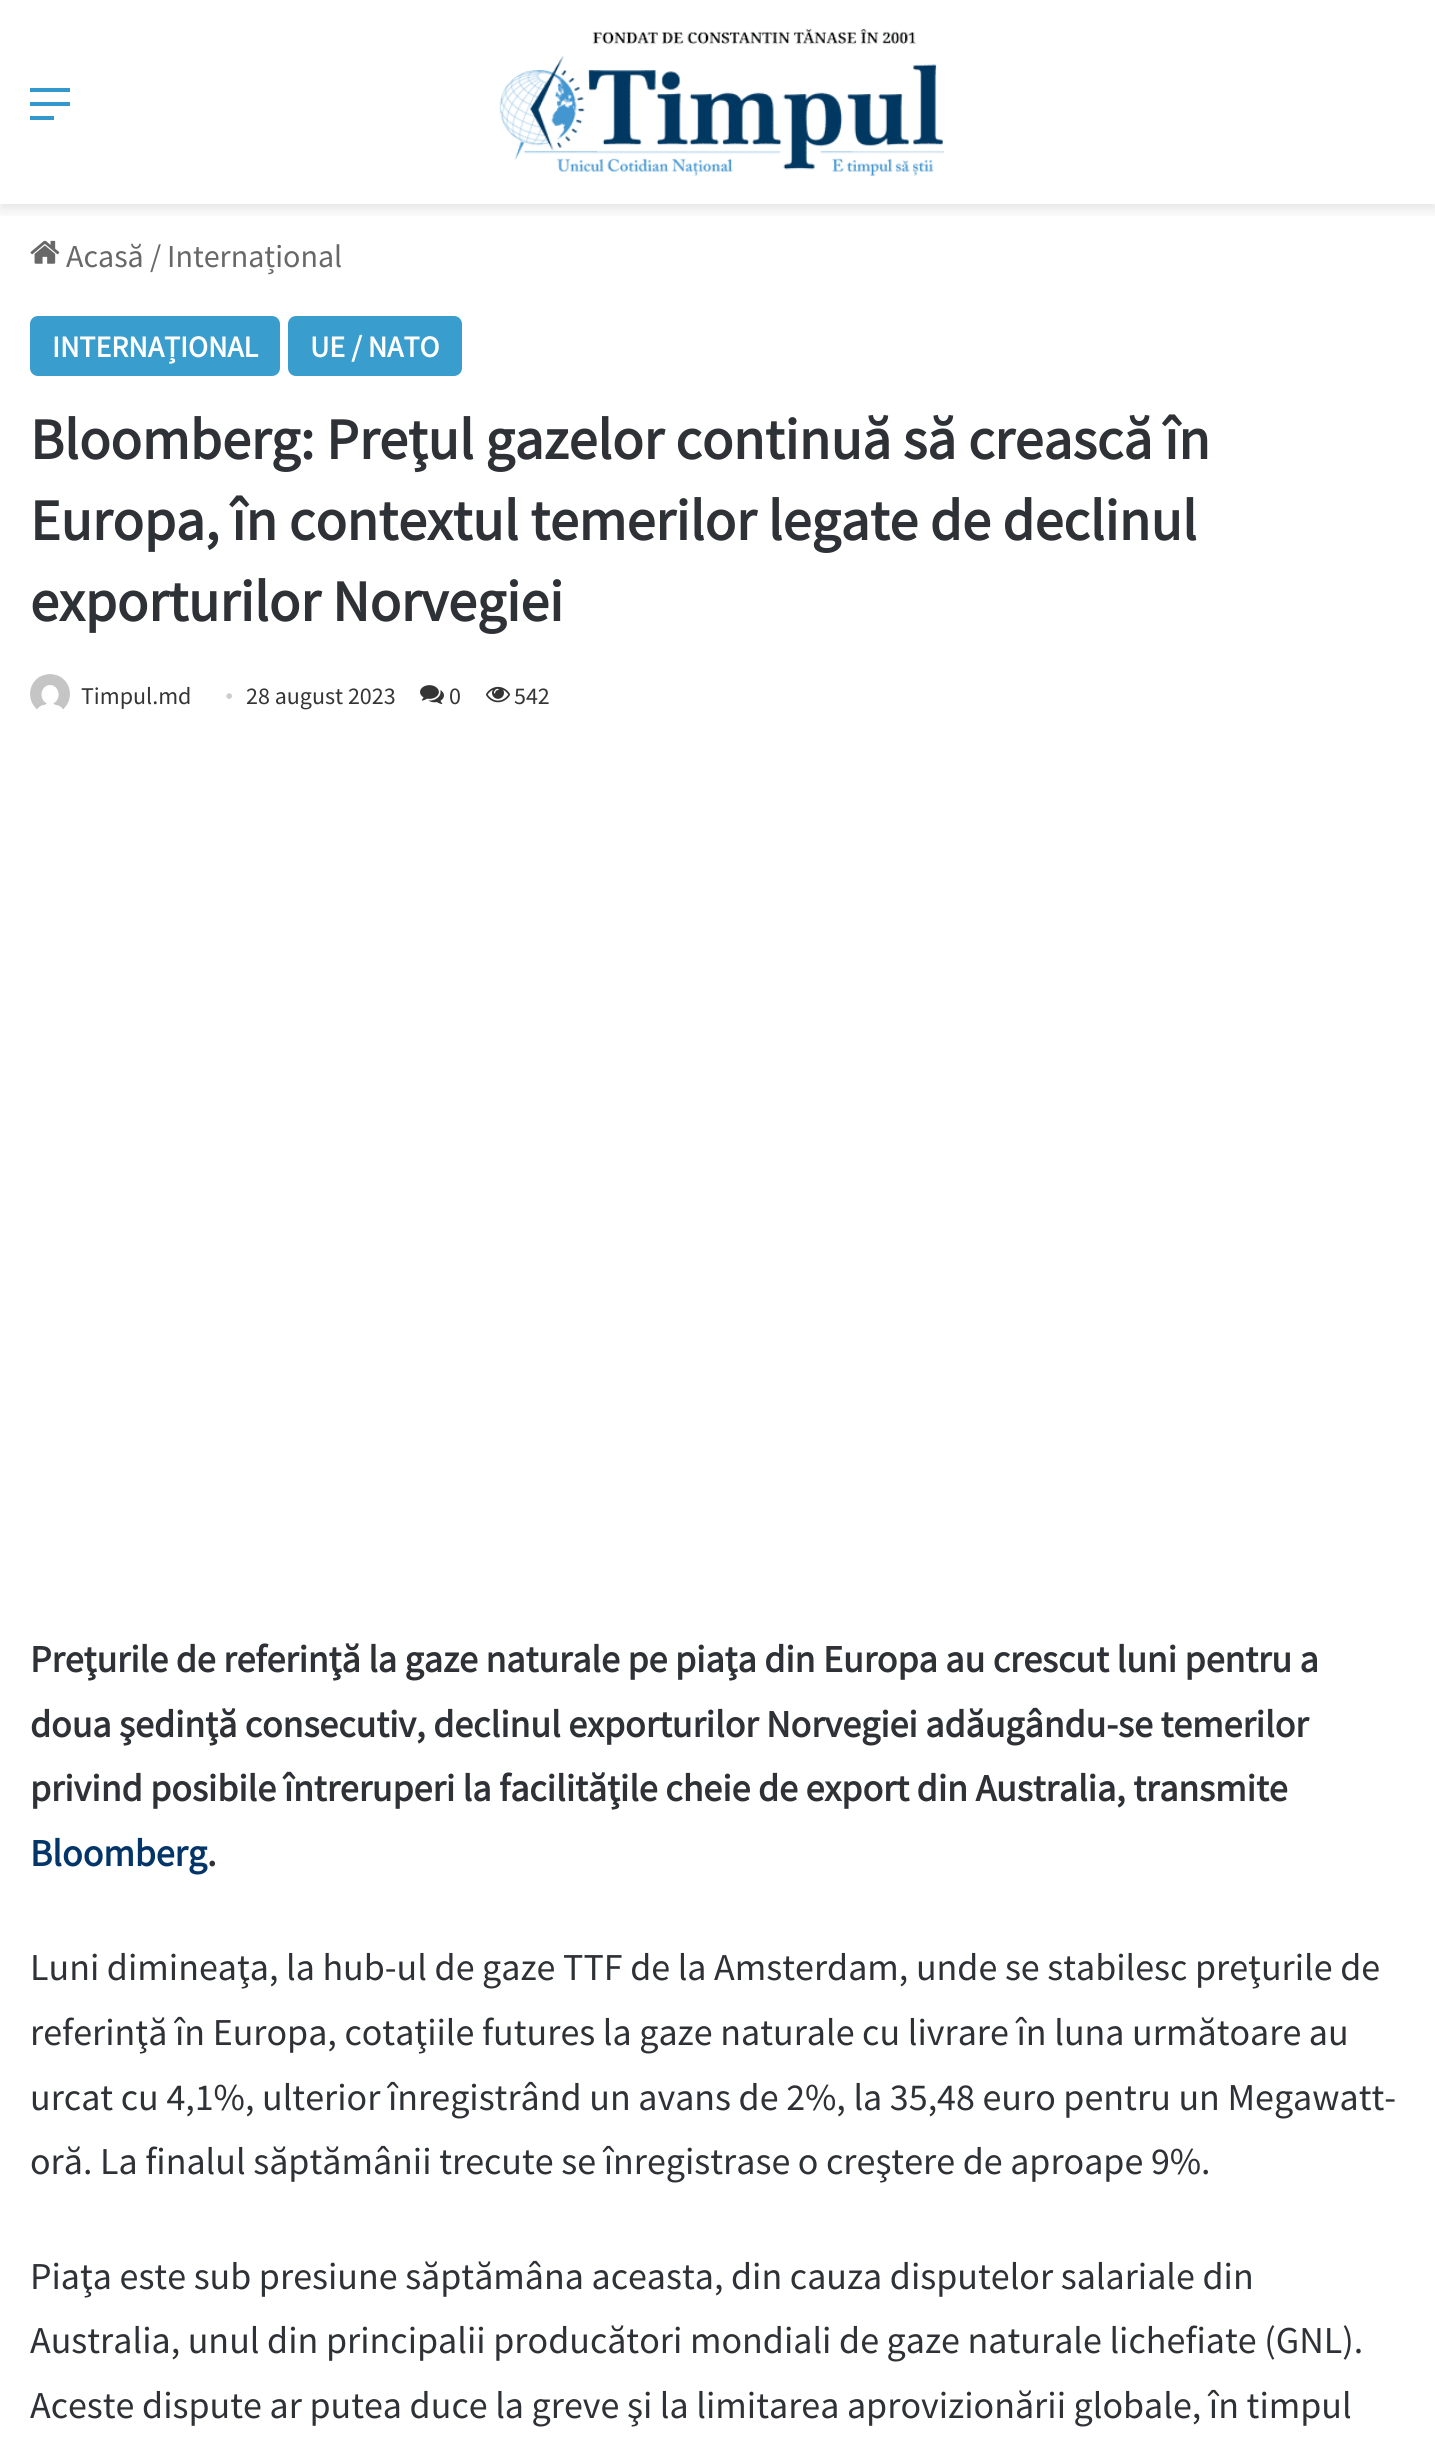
import math
import cairocffi as cairo

surface = cairo.ImageSurface(cairo.FORMAT_RGB24, 1435, 2453)
ctx = cairo.Context(surface)
options = cairo.FontOptions()
options.set_hint_metrics(cairo.HINT_METRICS_OFF)
options.set_hint_style(cairo.HINT_STYLE_NONE)
ctx.set_font_options(options)
ctx.set_miter_limit(4)


def rgb(r, g, b):
    ctx.set_source_rgb(r / 255, g / 255, b / 255)


def face(family, size, italic, bold):
    ctx.select_font_face(family, cairo.FONT_SLANT_ITALIC if italic else cairo.FONT_SLANT_NORMAL, cairo.FONT_WEIGHT_BOLD if bold else cairo.FONT_WEIGHT_NORMAL)
    ctx.set_font_size(size)


def label(x, y, s):
    ctx.move_to(x, y)
    ctx.show_text(s)


def rect(x, y, w, h):
    ctx.rectangle(x, y, w, h)
    ctx.fill()


def rrect(x, y, w, h, r):
    ctx.new_sub_path()
    for i, (u, v) in enumerate([(x + w - r, y + h - r), (x + r, y + h - r), (x + r, y + r), (x + w - r, y + r)]):
        ctx.arc(u, v, r, i * math.pi / 2, (i + 1) * math.pi / 2)
    ctx.close_path()


def soft_shadow(x, y, w, h, r, blur, alpha):
    ctx.push_group_with_content(cairo.CONTENT_ALPHA)
    ctx.set_operator(cairo.OPERATOR_SOURCE)
    for i in range(15, -16, -2):
        e = blur * i / 6
        if min(w, h) + 2 * e > 0:
            ctx.set_source_rgba(0, 0, 0, alpha * math.erfc((i - 1) / 8.5) / 2)
            rrect(x - e, y - e, w + 2 * e, h + 2 * e, max(0, min(r + e + blur * .6, min(w, h) / 2 + e)))
            ctx.fill()
    ctx.mask(ctx.pop_group())


def image(path, x, y, w, h):
    ctx.save()
    ctx.set_source_surface(cairo.ImageSurface.create_from_png(path), x, y)
    ctx.rectangle(x, y, w, h)
    ctx.fill()
    ctx.restore()


rgb(255, 255, 255)
ctx.paint()
ctx.save()
ctx.rectangle(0, 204, 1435, 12)
ctx.clip()
rgb(0, 0, 0)
soft_shadow(0, 6, 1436, 204, 0, 7, 0.1)
ctx.restore()
rgb(51, 153, 204)
rect(30, 102, 40, 4)
rect(30, 88, 40, 4)
rect(30, 116, 24, 4)
image('image0.png', 499, 28, 445, 148)
image('image1.png', 30, 240, 30, 24)
face('Source Sans Pro', 32, 0, 0)
rgb(104, 104, 104)
label(66, 267, 'Acasă')
label(150, 267, '/')
label(167, 267, 'Internațional')
rgb(57, 157, 206)
rrect(30, 316, 250, 60, 8)
ctx.fill()
face('Source Sans Pro', 30, 0, 1)
rgb(255, 255, 255)
label(52, 357, 'INTERNAȚIONAL')
rgb(57, 157, 206)
rrect(288, 316, 174, 60, 8)
ctx.fill()
rgb(255, 255, 255)
label(310, 357, 'UE / NATO')
face('Source Sans Pro', 58, 0, 1)
rgb(46, 49, 54)
label(30, 459, 'Bloomberg: Preţul gazelor continuă să crească în')
label(30, 540, 'Europa, în contextul temerilor legate de declinul')
label(30, 621, 'exporturilor Norvegiei')
image('image2.png', 30, 674, 40, 36)
face('Source Sans Pro', 24, 0, 0)
rgb(53, 53, 53)
label(81, 704, 'Timpul.md')
face('Liberation Serif', 24, 0, 0)
rgb(205, 205, 205)
label(225, 704, '•')
face('Source Sans Pro', 24, 0, 0)
rgb(53, 53, 53)
label(246, 704, '28 august 2023')
image('image3.png', 420, 685, 24, 19)
label(449, 704, '0')
image('image4.png', 486, 686, 24, 17)
label(514, 704, '542')
face('Source Sans Pro', 38, 0, 1)
rgb(46, 49, 54)
label(30, 1672, 'Preţurile de referinţă la gaze naturale pe piaţa din Europa au crescut luni pentru a')
label(30, 1737, 'doua şedinţă consecutiv, declinul exporturilor Norvegiei adăugându-se temerilor')
label(30, 1801, 'privind posibile întreruperi la facilităţile cheie de export din Australia, transmite')
rgb(3, 53, 104)
label(30, 1866, 'Bloomberg')
rgb(46, 49, 54)
label(207, 1866, '.')
face('Source Sans Pro', 38, 0, 0)
label(30, 1980, 'Luni dimineaţa, la hub-ul de gaze TTF de la Amsterdam, unde se stabilesc preţurile de')
label(30, 2045, 'referinţă în Europa, cotaţiile futures la gaze naturale cu livrare în luna următoare au')
label(30, 2110, 'urcat cu 4,1%, ulterior înregistrând un avans de 2%, la 35,48 euro pentru un Megawatt-')
label(30, 2174, 'oră. La finalul săptămânii trecute se înregistrase o creştere de aproape 9%.')
label(30, 2289, 'Piaţa este sub presiune săptămâna aceasta, din cauza disputelor salariale din')
label(30, 2353, 'Australia, unul din principalii producători mondiali de gaze naturale lichefiate (GNL).')
label(30, 2418, 'Aceste dispute ar putea duce la greve şi la limitarea aprovizionării globale, în timpul')
surface.write_to_png('render.png')
